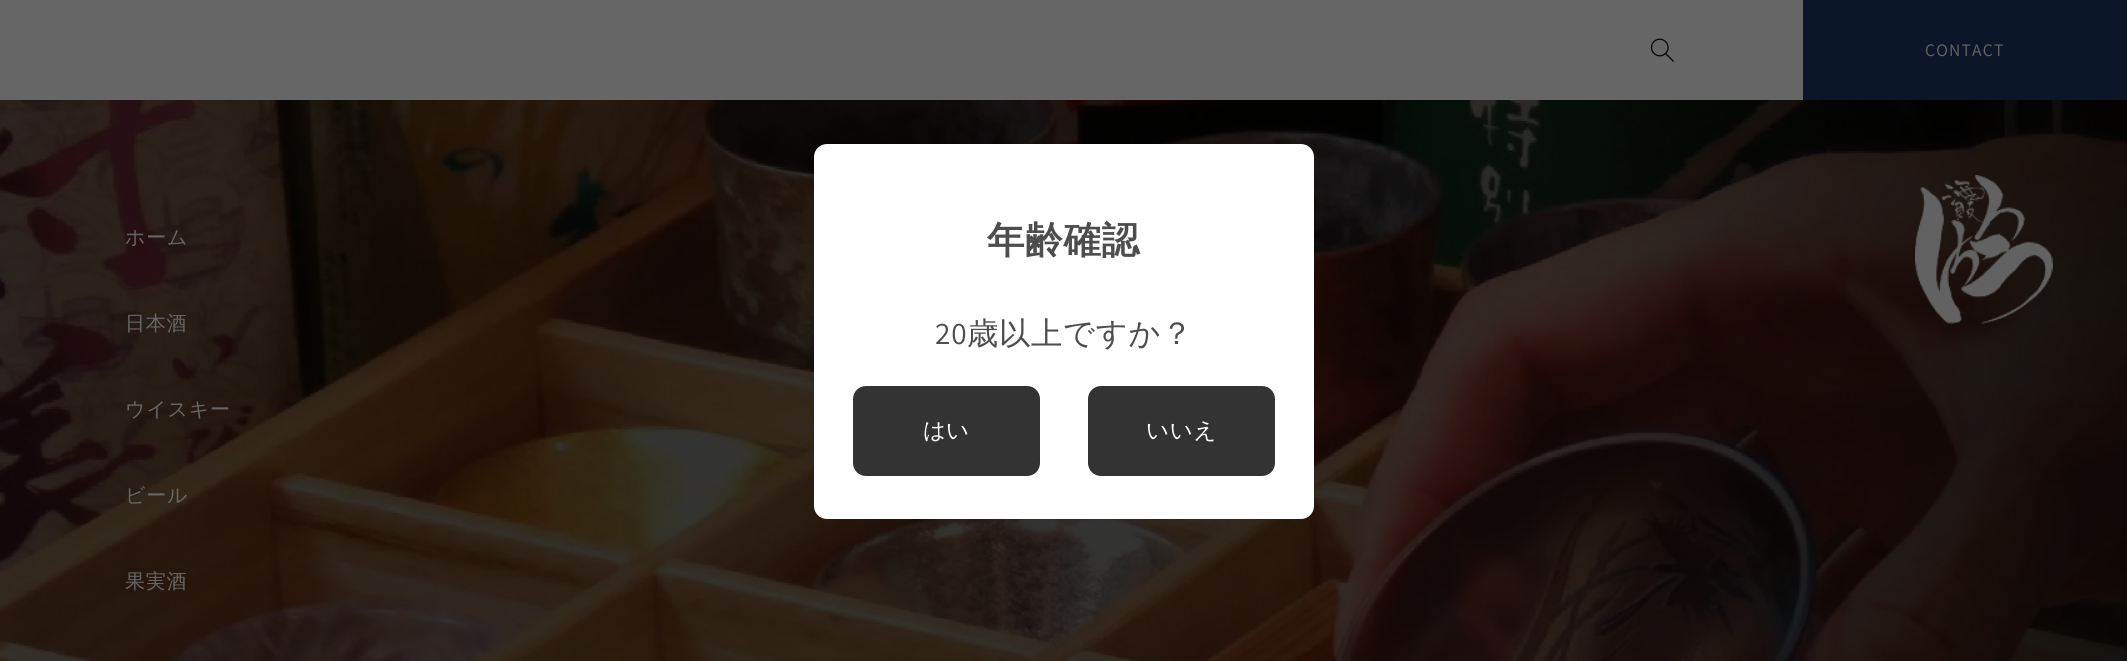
import math
import cairocffi as cairo

surface = cairo.ImageSurface(cairo.FORMAT_RGB24, 2127, 661)
ctx = cairo.Context(surface)
options = cairo.FontOptions()
options.set_hint_metrics(cairo.HINT_METRICS_OFF)
options.set_hint_style(cairo.HINT_STYLE_NONE)
ctx.set_font_options(options)
ctx.set_miter_limit(4)


def rgb(r, g, b):
    ctx.set_source_rgb(r / 255, g / 255, b / 255)


def face(family, size, italic, bold):
    ctx.select_font_face(family, cairo.FONT_SLANT_ITALIC if italic else cairo.FONT_SLANT_NORMAL, cairo.FONT_WEIGHT_BOLD if bold else cairo.FONT_WEIGHT_NORMAL)
    ctx.set_font_size(size)


def label(x, y, s):
    ctx.move_to(x, y)
    ctx.show_text(s)


def tracked(x, y, s, letter, word):
    ctx.move_to(x, y)
    for ch in s:
        ctx.show_text(ch)
        ctx.rel_move_to(letter + word * (ch == ' '), 0)


def rect(x, y, w, h):
    ctx.rectangle(x, y, w, h)
    ctx.fill()


def rrect(x, y, w, h, r):
    ctx.new_sub_path()
    for i, (u, v) in enumerate([(x + w - r, y + h - r), (x + r, y + h - r), (x + r, y + r), (x + w - r, y + r)]):
        ctx.arc(u, v, r, i * math.pi / 2, (i + 1) * math.pi / 2)
    ctx.close_path()


def image(path, x, y, w, h):
    ctx.save()
    ctx.set_source_surface(cairo.ImageSurface.create_from_png(path), x, y)
    ctx.rectangle(x, y, w, h)
    ctx.fill()
    ctx.restore()


rgb(255, 255, 255)
ctx.paint()
image('image0.png', 0, 100, 2127, 561)
face('WenQuanYi Zen Hei Medium', 20, 0, 0)
rgb(102, 102, 102)
tracked(125, 244, 'ホーム', 0.75, 0)
tracked(125, 330, '日本酒', 0.75, 0)
tracked(125, 416, 'ウイスキー', 0.75, 0)
tracked(125, 502, 'ビール', 0.75, 0)
tracked(125, 588, '果実酒', 0.75, 0)
image('image1.png', 1915, 175, 138, 149)
rect(0, 0, 1803, 100)
image('image2.png', 1650, 38, 24, 24)
rgb(11, 22, 40)
rect(1803, 0, 324, 100)
face('Assistant', 17.5, 0, 0)
rgb(102, 102, 102)
tracked(1925, 56, 'CONTACT', 1.25, 0)
rgb(255, 255, 255)
rrect(814, 144, 500, 375, 13)
ctx.fill()
face('WenQuanYi Zen Hei', 37.5, 0, 1)
rgb(77, 77, 77)
tracked(987, 253, '年齢確認', 0.75, 0)
face('Assistant', 31.25, 0, 0)
tracked(935, 344, '20', 0.75, 0)
face('WenQuanYi Zen Hei Medium', 31.25, 0, 0)
tracked(967, 344, '歳以上ですか？', 0.75, 0)
rgb(51, 51, 51)
rrect(853, 386, 187, 90, 13)
ctx.fill()
face('WenQuanYi Zen Hei Medium', 22.5, 0, 0)
rgb(255, 255, 255)
label(923, 438, 'はい')
rgb(51, 51, 51)
rrect(1088, 386, 187, 90, 13)
ctx.fill()
rgb(255, 255, 255)
tracked(1146, 438, 'いいえ', 0.75, 0)
surface.write_to_png('render.png')
